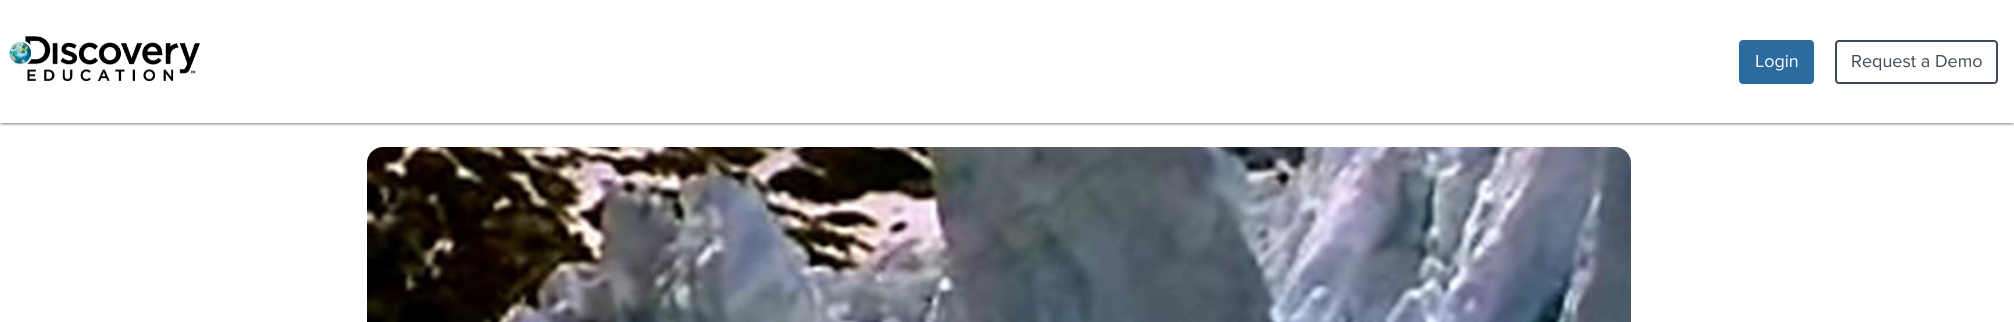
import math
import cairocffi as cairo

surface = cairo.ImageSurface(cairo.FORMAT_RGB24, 2014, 322)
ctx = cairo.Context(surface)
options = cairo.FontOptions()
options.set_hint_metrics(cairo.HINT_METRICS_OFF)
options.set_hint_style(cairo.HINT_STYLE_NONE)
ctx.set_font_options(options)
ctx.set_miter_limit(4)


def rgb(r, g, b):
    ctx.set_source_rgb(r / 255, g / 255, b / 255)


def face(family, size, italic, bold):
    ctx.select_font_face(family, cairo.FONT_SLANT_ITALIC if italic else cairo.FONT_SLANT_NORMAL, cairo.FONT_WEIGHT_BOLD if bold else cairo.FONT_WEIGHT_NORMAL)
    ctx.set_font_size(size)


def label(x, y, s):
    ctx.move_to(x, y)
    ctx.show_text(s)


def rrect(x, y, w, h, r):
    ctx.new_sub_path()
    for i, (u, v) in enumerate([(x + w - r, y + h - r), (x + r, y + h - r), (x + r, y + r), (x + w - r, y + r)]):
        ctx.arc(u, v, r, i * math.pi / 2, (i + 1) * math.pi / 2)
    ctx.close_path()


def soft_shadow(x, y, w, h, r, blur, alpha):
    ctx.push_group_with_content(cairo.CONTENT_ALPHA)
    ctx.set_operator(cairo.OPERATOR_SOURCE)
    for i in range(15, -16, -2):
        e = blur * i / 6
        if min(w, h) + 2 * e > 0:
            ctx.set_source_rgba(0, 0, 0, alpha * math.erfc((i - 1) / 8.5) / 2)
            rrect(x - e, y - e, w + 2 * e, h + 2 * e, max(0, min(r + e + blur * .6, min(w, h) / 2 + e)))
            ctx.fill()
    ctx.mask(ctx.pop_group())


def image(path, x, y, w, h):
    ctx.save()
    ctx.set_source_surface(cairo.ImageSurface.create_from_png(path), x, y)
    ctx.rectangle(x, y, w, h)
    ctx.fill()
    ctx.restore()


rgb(255, 255, 255)
ctx.paint()
ctx.save()
ctx.rectangle(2, 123, 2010, 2)
ctx.clip()
rgb(0, 0, 0)
soft_shadow(2, 5, 2010, 119, 0, 0.5, 0.2)
ctx.restore()
ctx.save()
ctx.rectangle(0, 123, 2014, 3)
ctx.clip()
rgb(0, 0, 0)
soft_shadow(0, 1, 2014, 123, 0, 2.5, 0.12)
soft_shadow(0, 2, 2014, 123, 0, 1, 0.14)
ctx.restore()
image('image0.png', 9, 36, 191, 45)
rgb(45, 106, 159)
rrect(1739, 40, 75, 44, 4)
ctx.fill()
face('Proxima Nova', 18, 0, 0)
rgb(255, 255, 255)
label(1755, 67, 'Login')
rrect(1836, 41, 161, 42, 3)
rgb(65, 72, 88)
ctx.stroke()
label(1851, 67, 'Request a Demo')
rgb(240, 244, 245)
ctx.new_path()
ctx.move_to(383, 147)
ctx.line_to(1615, 147)
ctx.curve_to(1624, 147, 1631, 154, 1631, 163)
ctx.line_to(1631, 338)
ctx.line_to(367, 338)
ctx.line_to(367, 163)
ctx.curve_to(367, 154, 374, 147, 383, 147)
ctx.close_path()
ctx.fill()
image('image1.png', 367, 147, 1264, 175)
surface.write_to_png('render.png')
